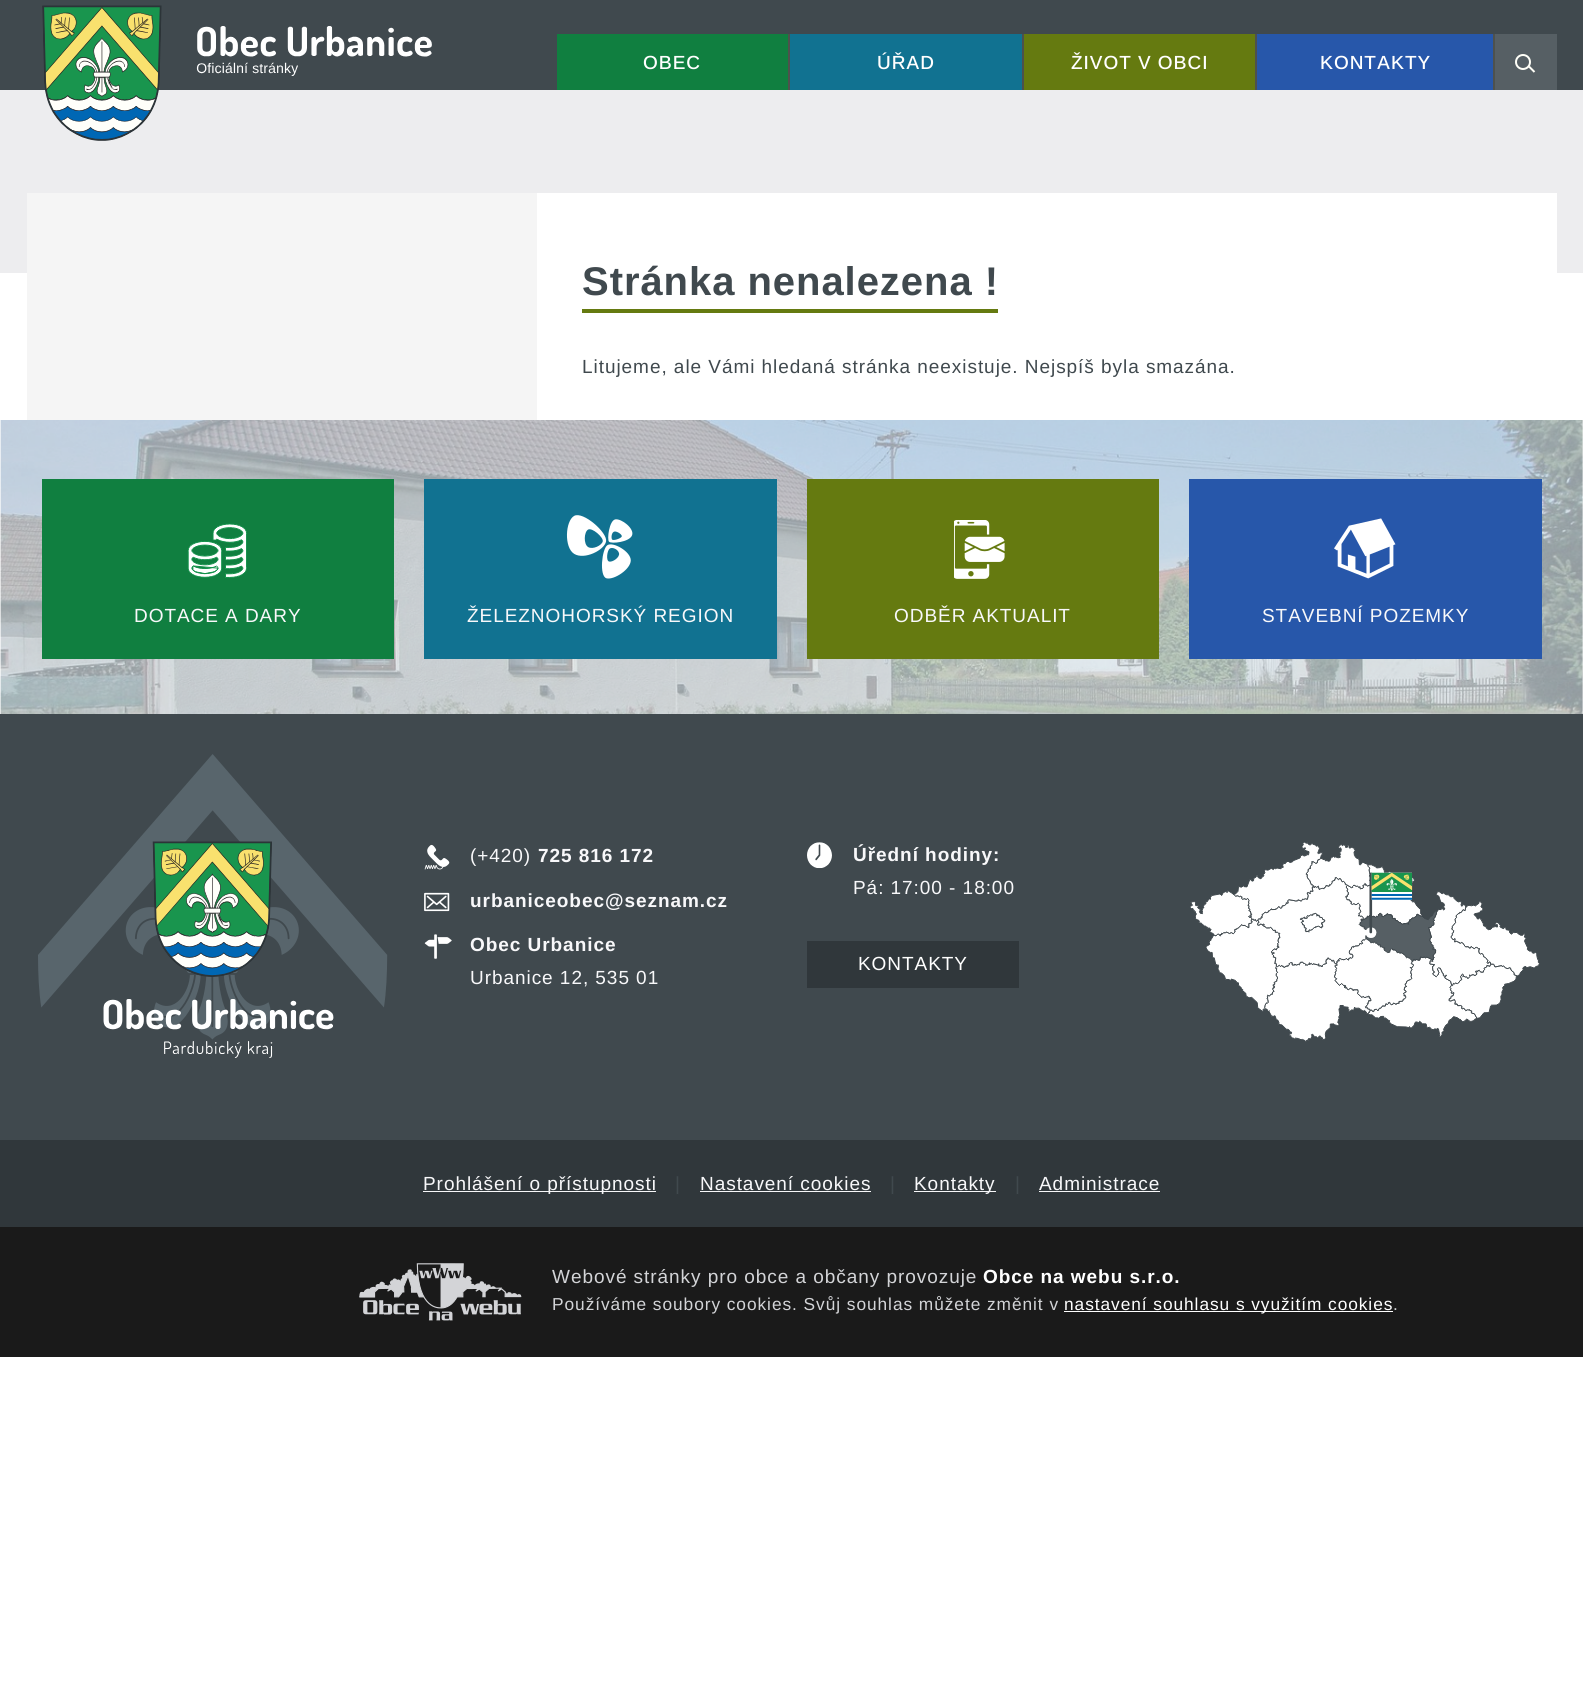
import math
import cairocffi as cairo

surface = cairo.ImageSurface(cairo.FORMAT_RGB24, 1583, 1697)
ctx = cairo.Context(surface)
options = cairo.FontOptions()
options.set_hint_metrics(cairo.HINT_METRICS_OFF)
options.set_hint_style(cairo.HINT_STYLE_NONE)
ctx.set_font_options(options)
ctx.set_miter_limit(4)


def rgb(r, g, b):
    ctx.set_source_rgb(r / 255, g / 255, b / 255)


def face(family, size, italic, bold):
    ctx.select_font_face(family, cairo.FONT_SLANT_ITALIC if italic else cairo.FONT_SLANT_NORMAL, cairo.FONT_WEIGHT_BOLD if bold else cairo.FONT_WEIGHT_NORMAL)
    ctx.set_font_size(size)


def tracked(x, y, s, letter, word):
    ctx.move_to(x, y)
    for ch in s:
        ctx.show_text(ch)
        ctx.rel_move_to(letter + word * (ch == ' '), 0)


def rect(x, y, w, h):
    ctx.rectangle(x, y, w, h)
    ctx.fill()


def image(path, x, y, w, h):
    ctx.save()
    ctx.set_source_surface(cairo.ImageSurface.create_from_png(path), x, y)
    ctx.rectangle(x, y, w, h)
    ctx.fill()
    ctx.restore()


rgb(255, 255, 255)
ctx.paint()
rgb(64, 73, 78)
rect(0, 0, 1583, 90)
rgb(237, 237, 239)
rect(0, 90, 1583, 183)
image('image0.png', 42, 5, 390, 136)
rgb(78, 81, 77)
rect(788, 34, 2, 56)
rgb(16, 127, 64)
rect(557, 34, 231, 56)
face('Arimo Medium', 19, 0, 0)
rgb(255, 255, 255)
tracked(643, 69, 'OBEC', 0.95, 0)
rgb(78, 81, 77)
rect(1022, 34, 2, 56)
rgb(17, 114, 145)
rect(790, 34, 232, 56)
rgb(255, 255, 255)
tracked(877, 69, 'ÚŘAD', 0.95, 0)
rgb(78, 81, 77)
rect(1255, 34, 2, 56)
rgb(101, 122, 16)
rect(1024, 34, 231, 56)
rgb(255, 255, 255)
tracked(1071, 69, 'ŽIVOT V OBCI', 0.95, 0)
rgb(78, 81, 77)
rect(1493, 34, 2, 56)
rgb(39, 87, 170)
rect(1257, 34, 236, 56)
rgb(255, 255, 255)
tracked(1320, 69, 'KONTAKTY', 0.95, 0)
rgb(86, 95, 100)
rect(1495, 34, 62, 56)
ctx.new_path()
ctx.arc(1523, 62, 7, 0, 2 * math.pi)
rgb(255, 255, 248)
ctx.stroke()
ctx.new_path()
ctx.move_to(1529, 66.5)
ctx.line_to(1534.5, 72)
ctx.stroke()
rgb(245, 245, 245)
rect(27, 193, 510, 227)
rgb(255, 255, 255)
rect(537, 193, 1020, 80)
rgb(101, 122, 16)
rect(582, 309, 416, 4)
face('Arimo', 40, 0, 1)
rgb(64, 73, 78)
tracked(582, 295, 'Stránka nenalezena !', 0.95, 0)
face('Arimo', 19, 0, 0)
tracked(582, 373, 'Litujeme, ale Vámi hledaná stránka neexistuje. Nejspíš byla smazána.', 0.95, 0)
image('image1.png', 0, 420, 1583, 294)
rgb(16, 127, 64)
rect(42, 479, 352, 180)
image('image2.png', 187, 523, 60, 55)
rgb(248, 248, 250)
tracked(134, 622, 'DOTACE A DARY', 0.95, 0)
rgb(17, 114, 145)
rect(424, 479, 353, 180)
image('image3.png', 566, 515, 67, 64)
rgb(248, 248, 250)
tracked(467, 622, 'ŽELEZNOHORSKÝ REGION', 0.95, 0)
rgb(101, 122, 16)
rect(807, 479, 352, 180)
image('image4.png', 954, 520, 51, 59)
rgb(248, 248, 250)
tracked(894, 622, 'ODBĚR AKTUALIT', 0.95, 0)
rgb(39, 87, 170)
rect(1189, 479, 353, 180)
image('image5.png', 1334, 518, 62, 61)
rgb(248, 248, 250)
tracked(1262, 622, 'STAVEBNÍ POZEMKY', 0.95, 0)
rgb(64, 73, 78)
rect(0, 714, 1583, 426)
image('image6.png', 38, 754, 350, 286)
image('image7.png', 103, 841, 231, 217)
image('image8.png', 424, 844, 26, 26)
rgb(248, 248, 250)
tracked(470, 862, '(+420)', 0.95, 0)
face('Arimo', 19, 0, 1)
tracked(538, 862, '725 816 172', 0.95, 0)
image('image9.png', 424, 892, 26, 20)
tracked(470, 907, 'urbaniceobec@seznam.cz', 0.95, 0)
image('image10.png', 424, 934, 28, 25)
tracked(470, 951, 'Obec Urbanice', 0.95, 0)
face('Arimo', 19, 0, 0)
tracked(470, 984, 'Urbanice 12, 535 01', 0.95, 0)
image('image11.png', 807, 842, 25, 27)
face('Arimo', 19, 0, 1)
tracked(853, 861, 'Úřední hodiny:', 0.95, 0)
face('Arimo', 19, 0, 0)
tracked(853, 894, 'Pá: 17:00 - 18:00', 0.95, 0)
rgb(48, 55, 59)
rect(807, 941, 212, 47)
rgb(255, 255, 255)
tracked(858, 970, 'KONTAKTY', 0.95, 0)
image('image12.png', 1190, 842, 350, 200)
rgb(48, 55, 59)
rect(0, 1140, 1583, 87)
rgb(248, 248, 250)
rect(423, 1191, 233, 1)
tracked(423, 1190, 'Prohlášení o přístupnosti', 0.95, 0)
rgb(64, 73, 78)
tracked(675, 1190, '|', 0.95, 0)
rgb(248, 248, 250)
tracked(700, 1190, 'Nastavení cookies', 0.95, 0)
rect(700, 1191, 171, 1)
rgb(64, 73, 78)
tracked(890, 1190, '|', 0.95, 0)
rgb(248, 248, 250)
rect(914, 1191, 82, 1)
tracked(914, 1190, 'Kontakty', 0.95, 0)
rgb(64, 73, 78)
tracked(1015, 1190, '|', 0.95, 0)
rgb(248, 248, 250)
tracked(1039, 1190, 'Administrace', 0.95, 0)
rect(1039, 1191, 121, 1)
rgb(26, 26, 26)
rect(0, 1227, 1583, 130)
image('image13.png', 359, 1263, 163, 58)
rgb(211, 212, 215)
tracked(552, 1283, 'Webové stránky pro obce a občany provozuje', 0.95, 0)
face('Arimo', 19, 0, 1)
rgb(255, 255, 255)
tracked(983, 1283, 'Obce na webu s.r.o.', 0.95, 0)
face('Arimo', 17.3, 0, 0)
rgb(211, 212, 215)
tracked(552, 1310, 'Používáme soubory cookies. Svůj souhlas můžete změnit v', 0.95, 0)
rgb(255, 255, 255)
rect(1064, 1311, 329, 1)
tracked(1064, 1310, 'nastavení souhlasu s využitím cookies', 0.95, 0)
rgb(211, 212, 215)
tracked(1393, 1310, '.', 0.95, 0)
surface.write_to_png('render.png')
